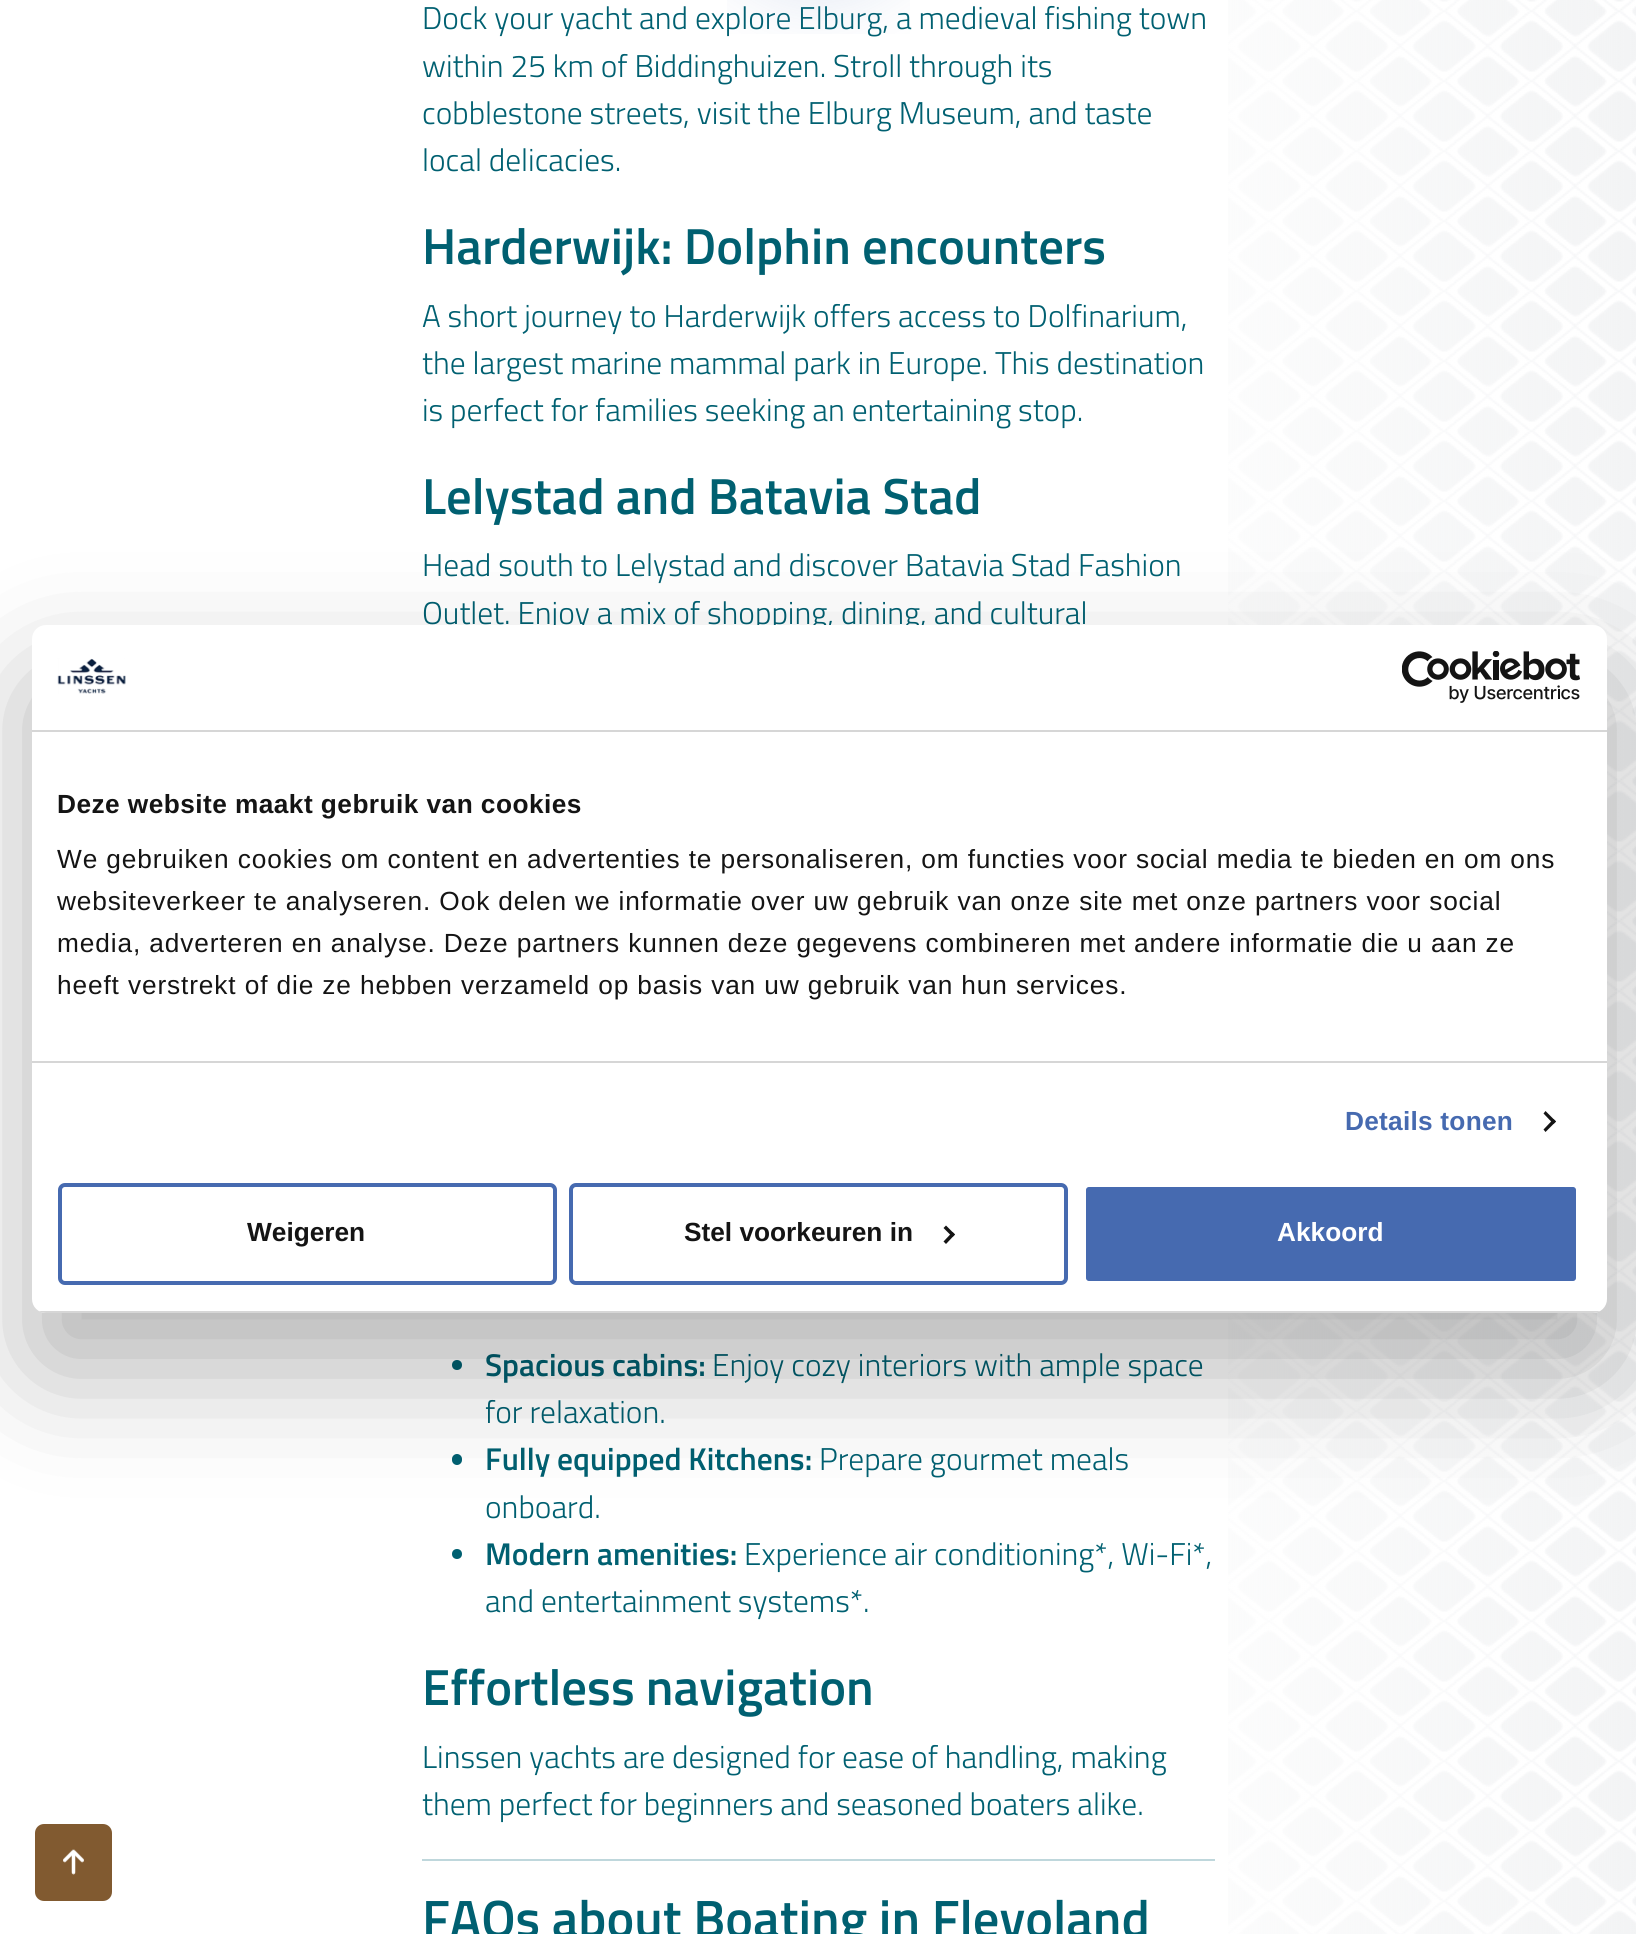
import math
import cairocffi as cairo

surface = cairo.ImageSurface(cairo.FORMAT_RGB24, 1636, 1934)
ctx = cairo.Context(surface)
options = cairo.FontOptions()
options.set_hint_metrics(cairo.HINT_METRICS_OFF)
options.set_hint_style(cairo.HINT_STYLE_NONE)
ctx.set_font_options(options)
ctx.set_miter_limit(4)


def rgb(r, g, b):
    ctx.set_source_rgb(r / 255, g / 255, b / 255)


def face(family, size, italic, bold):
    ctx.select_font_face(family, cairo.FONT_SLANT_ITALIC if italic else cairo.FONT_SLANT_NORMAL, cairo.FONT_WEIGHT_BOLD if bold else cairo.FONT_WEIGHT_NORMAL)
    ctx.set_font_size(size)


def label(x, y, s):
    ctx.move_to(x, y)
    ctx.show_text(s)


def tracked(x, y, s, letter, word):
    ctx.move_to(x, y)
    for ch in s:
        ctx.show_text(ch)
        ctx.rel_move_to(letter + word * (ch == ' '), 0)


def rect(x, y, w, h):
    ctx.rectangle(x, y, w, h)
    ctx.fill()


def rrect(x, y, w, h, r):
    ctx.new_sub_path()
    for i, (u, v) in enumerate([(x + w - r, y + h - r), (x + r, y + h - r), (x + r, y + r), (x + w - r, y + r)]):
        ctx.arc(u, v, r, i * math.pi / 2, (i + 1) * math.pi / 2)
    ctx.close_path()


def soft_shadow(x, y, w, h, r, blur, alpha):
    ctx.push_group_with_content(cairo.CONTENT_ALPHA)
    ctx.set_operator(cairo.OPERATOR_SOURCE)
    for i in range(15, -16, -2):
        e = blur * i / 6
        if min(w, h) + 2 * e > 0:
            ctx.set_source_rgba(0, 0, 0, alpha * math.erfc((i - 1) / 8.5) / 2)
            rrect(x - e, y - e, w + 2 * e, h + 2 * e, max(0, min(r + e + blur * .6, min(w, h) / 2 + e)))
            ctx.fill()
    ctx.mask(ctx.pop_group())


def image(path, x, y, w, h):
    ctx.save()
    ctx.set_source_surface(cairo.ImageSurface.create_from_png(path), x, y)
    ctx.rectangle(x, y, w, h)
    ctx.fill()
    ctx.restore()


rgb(255, 255, 255)
ctx.paint()
face('Titillium Web Light', 31.5, 0, 0)
rgb(0, 96, 113)
label(422, 29, 'Dock your yacht and explore Elburg, a medieval fishing town')
image('image0.png', 727, 0, 183, 34)
image('image1.png', 1228, 0, 408, 1934)
label(422, 77, 'within 25 km of Biddinghuizen. Stroll through its')
label(422, 124, 'cobblestone streets, visit the Elburg Museum, and taste')
label(422, 171, 'local delicacies.')
face('Titillium Web SemiBold', 50.75, 0, 0)
label(422, 264, 'Harderwijk: Dolphin encounters')
face('Titillium Web Light', 31.5, 0, 0)
label(422, 327, 'A short journey to Harderwijk offers access to Dolfinarium,')
label(422, 374, 'the largest marine mammal park in Europe. This destination')
label(422, 421, 'is perfect for families seeking an entertaining stop.')
face('Titillium Web SemiBold', 50.75, 0, 0)
label(422, 514, 'Lelystad and Batavia Stad')
face('Titillium Web Light', 31.5, 0, 0)
label(422, 576, 'Head south to Lelystad and discover Batavia Stad Fashion')
label(422, 624, 'Outlet. Enjoy a mix of shopping, dining, and cultural')
ctx.new_path()
ctx.arc(457, 1365, 5, 0, 2 * math.pi)
ctx.fill()
face('Titillium Web SemiBold', 31.5, 0, 0)
label(485, 1376, 'Spacious cabins:')
face('Titillium Web Light', 31.5, 0, 0)
label(712, 1376, 'Enjoy cozy interiors with ample space')
label(485, 1423, 'for relaxation.')
rrect(452, 1454, 10, 11, 5)
ctx.fill()
face('Titillium Web SemiBold', 31.5, 0, 0)
label(485, 1470, 'Fully equipped Kitchens:')
face('Titillium Web Light', 31.5, 0, 0)
label(819, 1470, 'Prepare gourmet meals')
label(485, 1518, 'onboard.')
ctx.new_path()
ctx.arc(457, 1554, 5, 0, 2 * math.pi)
ctx.fill()
face('Titillium Web SemiBold', 31.5, 0, 0)
label(485, 1565, 'Modern amenities:')
face('Titillium Web Light', 31.5, 0, 0)
label(744, 1565, 'Experience air conditioning*, Wi-Fi*,')
label(485, 1612, 'and entertainment systems*.')
face('Titillium Web SemiBold', 50.75, 0, 0)
label(422, 1705, 'Effortless navigation')
face('Titillium Web Light', 31.5, 0, 0)
label(422, 1768, 'Linssen yachts are designed for ease of handling, making')
label(422, 1815, 'them perfect for beginners and seasoned boaters alike.')
rgb(191, 215, 220)
rect(422, 1859, 793, 2)
face('Titillium Web SemiBold', 52.5, 0, 0)
rgb(0, 96, 113)
label(422, 1937, 'FAQs about Boating in Flevoland')
rgb(0, 0, 0)
soft_shadow(32, 681, 1575, 688, 14, 59.5, 0.3)
rgb(255, 255, 255)
rrect(32, 625, 1575, 688, 14)
ctx.fill()
rgb(214, 214, 214)
rect(32, 730, 1575, 2)
image('image2.png', 57, 658, 69, 36)
image('image3.png', 1402, 651, 178, 52)
rect(32, 1061, 1575, 2)
face('Liberation Sans', 26.25, 0, 1)
rgb(20, 20, 20)
tracked(57, 813, 'Deze website maakt gebruik van cookies', 0.45, 0)
face('Liberation Sans', 26.25, 0, 0)
tracked(57, 868, 'We gebruiken cookies om content en advertenties te personaliseren, om functies voor social media te bieden en om ons', 0.88, 0)
tracked(57, 910, 'websiteverkeer te analyseren. Ook delen we informatie over uw gebruik van onze site met onze partners voor social', 0.88, 0)
tracked(57, 952, 'media, adverteren en analyse. Deze partners kunnen deze gegevens combineren met andere informatie die u aan ze', 0.88, 0)
tracked(57, 994, 'heeft verstrekt of die ze hebben verzameld op basis van uw gebruik van hun services.', 0.88, 0)
face('Liberation Sans', 26.25, 0, 1)
rgb(70, 106, 176)
tracked(1345, 1130, 'Details tonen', 0.25, 0)
rgb(20, 20, 20)
ctx.new_path()
ctx.move_to(1545.5, 1111)
ctx.line_to(1556, 1121.5)
ctx.line_to(1553.5, 1124)
ctx.line_to(1543.5, 1113.5)
ctx.close_path()
ctx.fill()
ctx.new_path()
ctx.move_to(1553.5, 1119)
ctx.line_to(1556, 1121.5)
ctx.line_to(1545.5, 1132)
ctx.line_to(1543.5, 1129.5)
ctx.close_path()
ctx.fill()
ctx.save()
rrect(32, 625, 1575, 688, 14)
ctx.clip()
rgb(214, 214, 214)
rect(32, 1311, 1575, 2)
ctx.restore()
rrect(60, 1185, 495, 98, 5)
rgb(70, 106, 176)
ctx.set_line_width(4)
ctx.stroke()
rgb(20, 20, 20)
label(247, 1241, 'Weigeren')
rrect(571, 1185, 495, 98, 5)
rgb(70, 106, 176)
ctx.stroke()
rgb(20, 20, 20)
label(684, 1241, 'Stel voorkeuren in')
ctx.new_path()
ctx.move_to(946, 1225.5)
ctx.line_to(955, 1234.5)
ctx.line_to(952.5, 1237)
ctx.line_to(943.5, 1228)
ctx.close_path()
ctx.fill()
ctx.new_path()
ctx.move_to(952.5, 1232)
ctx.line_to(955, 1234.5)
ctx.line_to(946, 1244)
ctx.line_to(943.5, 1241.5)
ctx.close_path()
ctx.fill()
rgb(70, 106, 176)
rrect(1084, 1185, 494, 98, 5)
ctx.fill_preserve()
rgb(255, 255, 255)
ctx.stroke()
label(1277, 1241, 'Akkoord')
rgb(129, 90, 48)
rrect(35, 1824, 77, 77, 9)
ctx.fill()
image('image4.png', 63, 1849, 21, 26)
surface.write_to_png('render.png')
